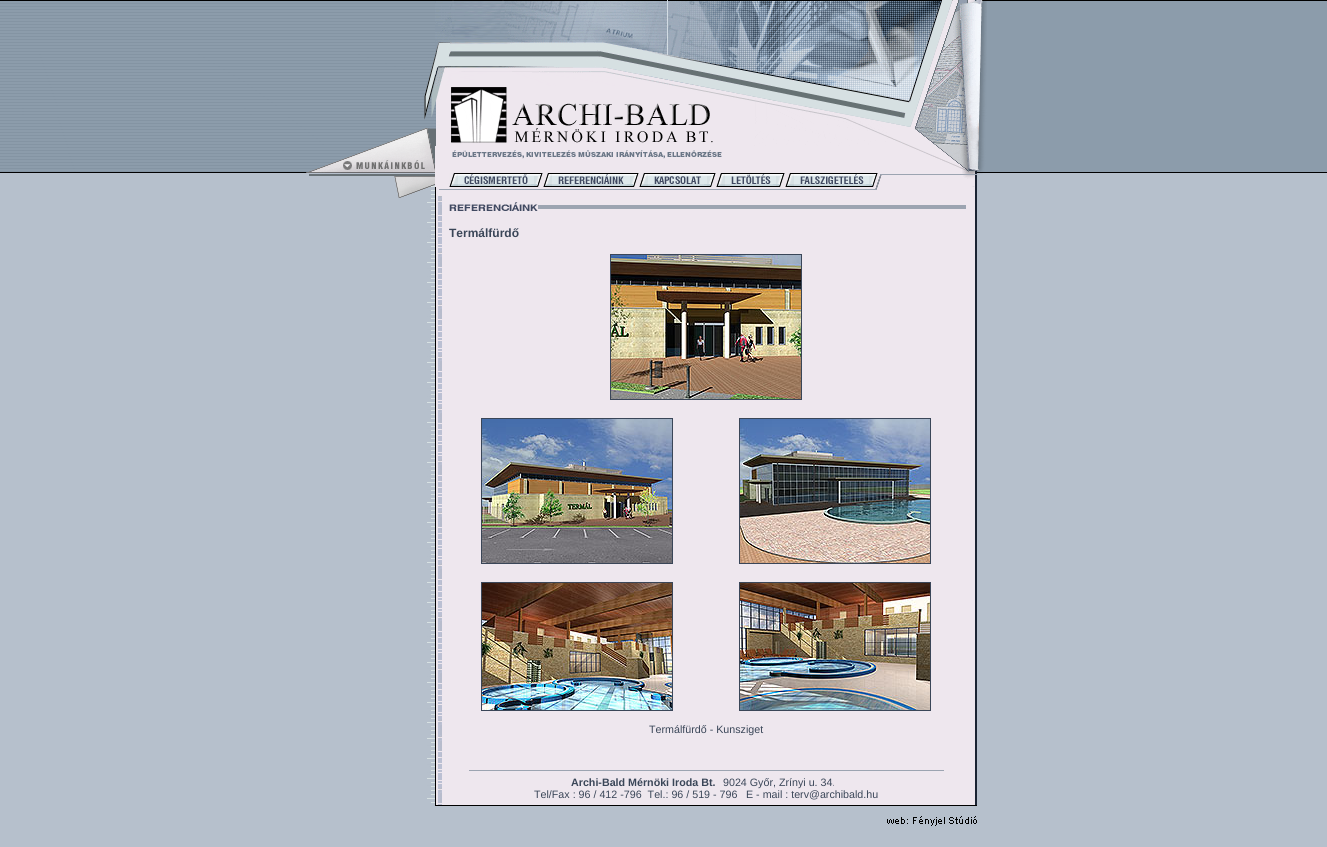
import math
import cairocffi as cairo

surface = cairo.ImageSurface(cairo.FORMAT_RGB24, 1327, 847)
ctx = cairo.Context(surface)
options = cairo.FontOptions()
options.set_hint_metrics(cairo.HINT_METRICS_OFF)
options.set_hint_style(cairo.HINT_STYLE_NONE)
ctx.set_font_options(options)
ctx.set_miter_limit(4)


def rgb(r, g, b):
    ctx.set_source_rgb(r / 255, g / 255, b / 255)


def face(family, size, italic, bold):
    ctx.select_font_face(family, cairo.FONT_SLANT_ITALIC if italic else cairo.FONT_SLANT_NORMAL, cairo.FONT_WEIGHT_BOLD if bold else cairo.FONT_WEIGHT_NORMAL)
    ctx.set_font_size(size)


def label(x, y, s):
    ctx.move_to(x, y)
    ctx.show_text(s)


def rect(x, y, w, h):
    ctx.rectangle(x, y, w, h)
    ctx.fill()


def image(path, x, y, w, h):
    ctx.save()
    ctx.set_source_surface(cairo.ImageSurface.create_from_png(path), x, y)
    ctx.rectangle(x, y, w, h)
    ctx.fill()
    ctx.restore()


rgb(182, 192, 204)
ctx.paint()
image('image0.png', 0, 0, 1327, 173)
image('image1.png', 427, 56, 8, 30)
image('image2.png', 435, 0, 542, 86)
image('image3.png', 977, 0, 10, 175)
image('image4.png', 379, 86, 56, 60)
image('image5.png', 435, 86, 14, 60)
image('image6.png', 449, 86, 304, 60)
image('image7.png', 753, 86, 134, 60)
image('image8.png', 887, 86, 90, 60)
image('image9.png', 306, 146, 129, 27)
rgb(238, 231, 238)
rect(435, 146, 14, 41)
image('image10.png', 449, 146, 528, 27)
image('image11.png', 309, 174, 126, 13)
image('image12.png', 449, 173, 94, 14)
image('image13.png', 543, 173, 96, 14)
image('image14.png', 639, 173, 77, 14)
image('image15.png', 716, 173, 69, 14)
image('image16.png', 785, 173, 93, 14)
image('image17.png', 878, 173, 99, 14)
image('image18.png', 396, 187, 39, 12)
image('image19.png', 435, 187, 542, 12)
image('image20.png', 427, 202, 8, 533)
image('image21.png', 435, 216, 542, 519)
image('image22.png', 449, 199, 257, 17)
image('image23.png', 435, 199, 14, 17)
image('image24.png', 449, 202, 89, 9)
image('image25.png', 706, 199, 260, 17)
image('image26.png', 966, 199, 11, 17)
face('Liberation Sans', 12, 0, 1)
rgb(58, 70, 88)
label(449, 237, 'Termálfürdő')
ctx.rectangle(610.5, 254.5, 191, 145)
ctx.set_line_width(1)
ctx.stroke()
image('image27.png', 611, 255, 190, 144)
ctx.rectangle(481.5, 418.5, 191, 145)
ctx.stroke()
image('image28.png', 482, 419, 190, 144)
ctx.rectangle(739.5, 418.5, 191, 145)
ctx.stroke()
image('image29.png', 740, 419, 190, 144)
ctx.rectangle(481.5, 582.5, 191, 128)
ctx.stroke()
image('image30.png', 482, 583, 190, 127)
ctx.rectangle(739.5, 582.5, 191, 128)
ctx.stroke()
image('image31.png', 740, 583, 190, 127)
image('image33.png', 435, 735, 542, 70)
face('Liberation Sans', 10.7, 0, 0)
label(649, 733, 'Termálfürdő - Kunsziget')
image('image32.png', 427, 738, 8, 65)
rgb(156, 164, 177)
rect(469, 770, 475, 1)
face('Liberation Sans', 10.7, 0, 1)
rgb(58, 70, 88)
label(571, 786, 'Archi-Bald Mérnöki Iroda Bt.')
face('Liberation Sans', 10.7, 0, 0)
label(723, 786, '9024 Győr, Zrínyi u. 34.')
label(534, 798, 'Tel/Fax : 96 / 412 -796  Tel.: 96 / 519 - 796')
label(746, 798, 'E - mail : terv@archibald.hu')
rgb(0, 0, 0)
rect(435, 805, 542, 1)
image('image34.png', 887, 816, 90, 10)
surface.write_to_png('render.png')
